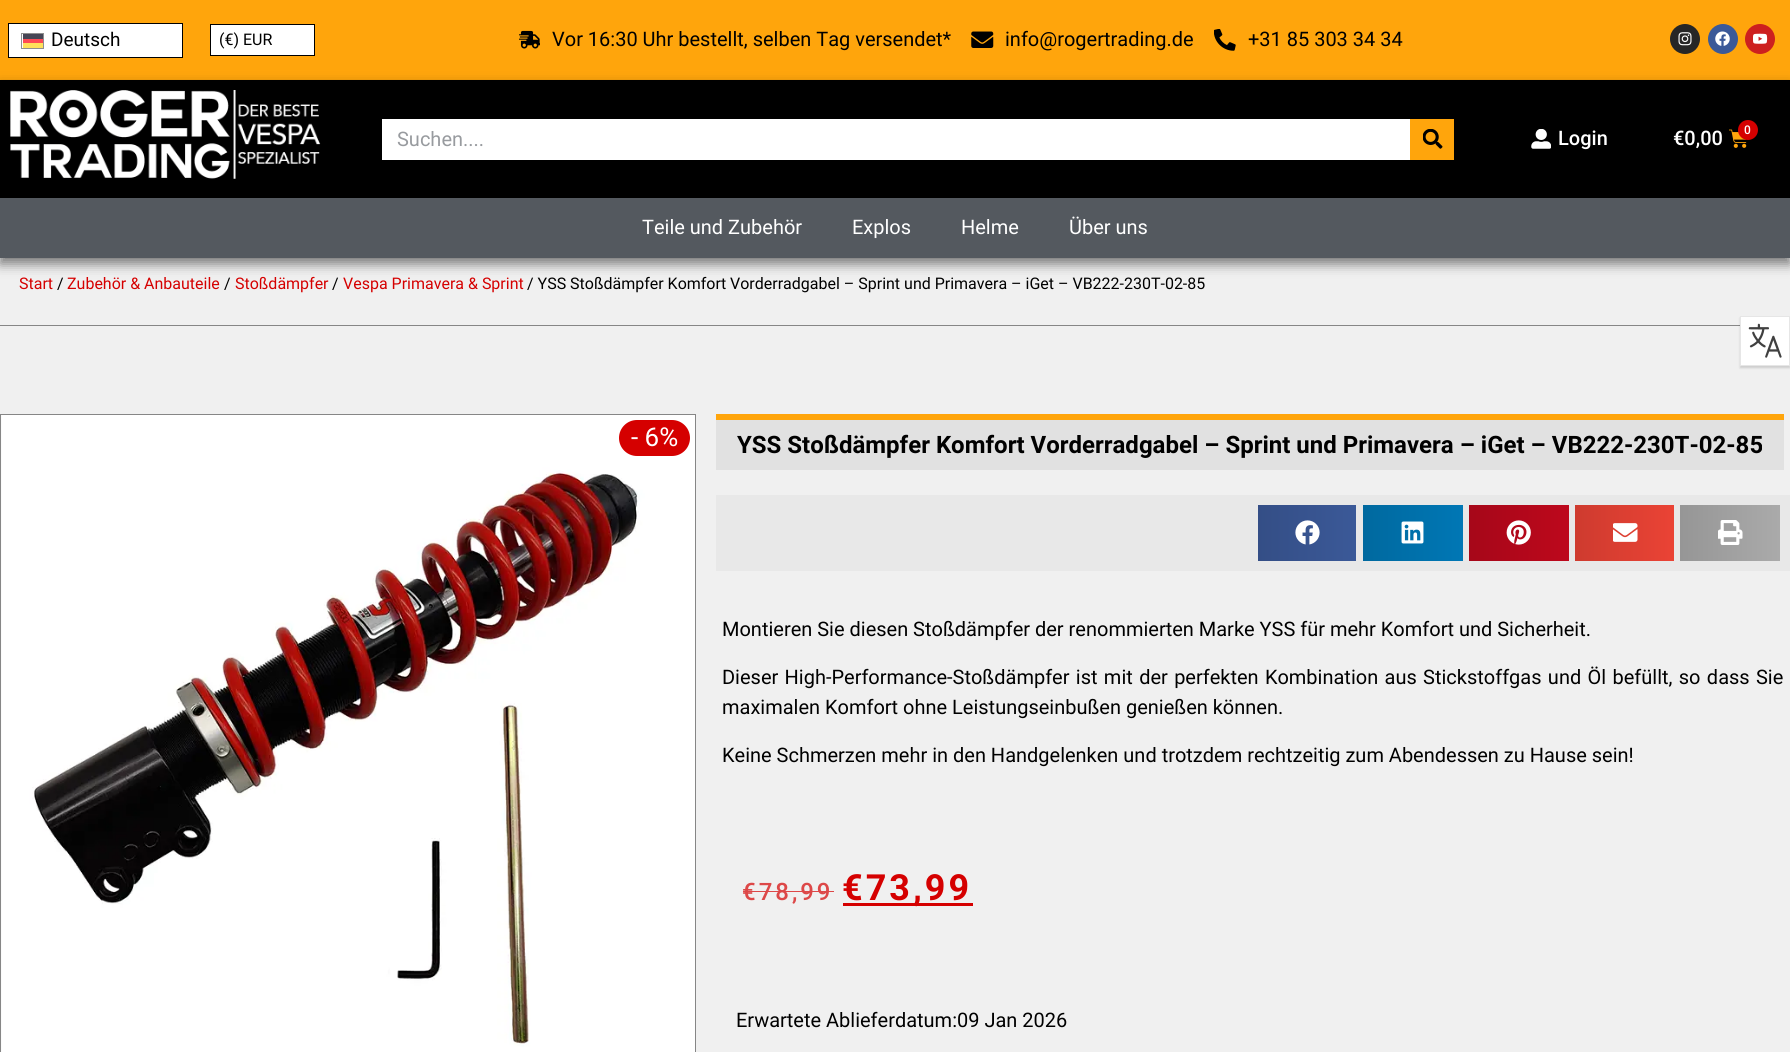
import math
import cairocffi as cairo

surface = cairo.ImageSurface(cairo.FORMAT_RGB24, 1790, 1052)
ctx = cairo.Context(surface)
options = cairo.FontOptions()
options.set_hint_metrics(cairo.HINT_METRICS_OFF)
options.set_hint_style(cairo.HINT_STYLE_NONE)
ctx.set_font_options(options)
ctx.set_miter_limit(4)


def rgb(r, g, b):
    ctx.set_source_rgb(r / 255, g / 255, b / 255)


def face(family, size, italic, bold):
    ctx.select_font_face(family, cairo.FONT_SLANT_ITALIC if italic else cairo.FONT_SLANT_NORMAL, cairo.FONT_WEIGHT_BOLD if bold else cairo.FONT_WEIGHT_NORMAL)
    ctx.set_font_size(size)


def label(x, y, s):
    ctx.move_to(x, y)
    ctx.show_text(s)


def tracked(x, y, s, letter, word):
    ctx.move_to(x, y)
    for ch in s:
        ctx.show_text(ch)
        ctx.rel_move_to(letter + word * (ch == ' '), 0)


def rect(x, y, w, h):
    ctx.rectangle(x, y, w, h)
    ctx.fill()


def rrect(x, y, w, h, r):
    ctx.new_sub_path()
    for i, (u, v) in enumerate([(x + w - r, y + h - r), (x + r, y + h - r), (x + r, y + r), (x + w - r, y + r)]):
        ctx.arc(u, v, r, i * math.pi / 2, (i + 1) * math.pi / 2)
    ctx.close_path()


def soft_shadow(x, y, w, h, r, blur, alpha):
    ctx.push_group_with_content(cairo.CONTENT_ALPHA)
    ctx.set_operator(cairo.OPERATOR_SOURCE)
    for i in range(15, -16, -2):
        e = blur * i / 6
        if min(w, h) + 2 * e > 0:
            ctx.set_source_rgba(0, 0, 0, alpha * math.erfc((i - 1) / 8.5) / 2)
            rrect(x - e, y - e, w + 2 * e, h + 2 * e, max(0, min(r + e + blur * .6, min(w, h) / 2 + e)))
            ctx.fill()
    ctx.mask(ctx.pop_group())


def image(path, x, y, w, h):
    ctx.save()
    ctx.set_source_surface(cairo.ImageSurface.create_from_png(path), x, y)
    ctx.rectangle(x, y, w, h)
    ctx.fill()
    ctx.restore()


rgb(240, 240, 240)
ctx.paint()
rgb(255, 165, 12)
rect(0, 0, 1790, 80)
rgb(255, 255, 255)
ctx.rectangle(8.5, 23.5, 174, 34)
ctx.fill_preserve()
rgb(0, 0, 0)
ctx.set_line_width(1)
ctx.stroke()
ctx.rectangle(21.5, 33.5, 22, 15)
rgb(143, 143, 143)
ctx.stroke()
face('Roboto', 19, 0, 0)
rgb(0, 0, 0)
label(51, 46, 'Deutsch')
rgb(70, 70, 85)
rect(23, 34, 20, 5)
rgb(255, 75, 85)
rect(23, 39, 20, 4)
rgb(255, 225, 90)
rect(23, 43, 20, 5)
rgb(255, 255, 255)
ctx.rectangle(210.5, 24.5, 104, 31)
ctx.fill_preserve()
rgb(0, 0, 0)
ctx.stroke()
face('Roboto', 16, 0, 0)
label(219, 45, '(€) EUR')
image('image0.png', 519, 30, 21, 19)
face('Roboto', 20, 0, 0)
label(552, 46, 'Vor 16:30 Uhr bestellt, selben Tag versendet*')
image('image1.png', 971, 31, 23, 17)
label(1005, 46, 'info@rogertrading.de')
image('image2.png', 1214, 29, 22, 22)
label(1248, 46, '+31 85 303 34 34')
rgb(38, 38, 38)
ctx.new_path()
ctx.arc(1685, 39, 15, 0, 2 * math.pi)
ctx.fill()
image('image3.png', 1678, 32, 14, 14)
rgb(59, 89, 152)
ctx.arc(1723, 39, 15, 0, 2 * math.pi)
ctx.fill()
image('image4.png', 1715, 31, 15, 15)
rgb(205, 32, 31)
ctx.arc(1760, 39, 15, 0, 2 * math.pi)
ctx.fill()
image('image5.png', 1753, 33, 15, 11)
rgb(0, 0, 0)
soft_shadow(0, 86, 1790, 118, 0, 6, 0.5)
rgb(0, 0, 0)
rect(0, 80, 1790, 118)
image('image6.png', 10, 90, 311, 89)
rgb(255, 255, 255)
rect(382, 119, 1028, 41)
rgb(152, 155, 159)
label(397, 146, 'Suchen....')
rgb(255, 165, 12)
rect(1410, 119, 44, 41)
image('image7.png', 1423, 129, 20, 20)
image('image8.png', 1531, 129, 20, 20)
face('Roboto Medium', 20, 0, 0)
rgb(255, 255, 255)
label(1558, 145, 'Login')
label(1673, 145, '€0,00')
image('image9.png', 1729, 129, 18, 19)
rgb(213, 0, 0)
ctx.arc(1748, 130, 10, 0, 2 * math.pi)
ctx.fill()
face('Roboto Medium', 12, 0, 0)
rgb(255, 255, 255)
label(1744, 134, '0')
rgb(0, 0, 0)
soft_shadow(0, 204, 1790, 60, 0, 6, 0.5)
rgb(84, 89, 95)
rect(0, 198, 1790, 60)
face('Roboto', 20, 0, 0)
rgb(255, 255, 255)
label(642, 234, 'Teile und Zubehör')
label(852, 234, 'Explos')
label(961, 234, 'Helme')
label(1069, 234, 'Über uns')
rgb(134, 134, 134)
rect(0, 325, 1740, 1)
face('Roboto', 16, 0, 0)
rgb(213, 0, 0)
label(19, 289, 'Start')
rgb(0, 0, 0)
label(57, 289, '/')
rgb(213, 0, 0)
label(67, 289, 'Zubehör & Anbauteile')
rgb(0, 0, 0)
label(224, 289, '/')
rgb(213, 0, 0)
label(235, 289, 'Stoßdämpfer')
rgb(0, 0, 0)
label(332, 289, '/')
rgb(213, 0, 0)
label(343, 289, 'Vespa Primavera & Sprint')
rgb(0, 0, 0)
label(527, 289, '/ YSS Stoßdämpfer Komfort Vorderradgabel – Sprint und Primavera – iGet – VB222-230T-02-85')
rgb(0, 0, 0)
soft_shadow(1740, 318, 50, 50, 0, 1, 0.15)
rgb(255, 255, 255)
ctx.rectangle(1740.5, 316.5, 49, 49)
ctx.fill_preserve()
rgb(230, 230, 230)
ctx.stroke()
image('image10.png', 1748, 323, 34, 35)
ctx.rectangle(0.5, 414.5, 695, 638)
rgb(134, 134, 134)
ctx.stroke()
image('image11.png', 1, 415, 694, 637)
rgb(213, 0, 0)
rrect(619, 420, 71, 36, 18)
ctx.fill()
face('Roboto', 26, 0, 0)
rgb(255, 255, 255)
label(631, 446, '- 6%')
rgb(225, 225, 225)
rect(716, 420, 1068, 50)
rgb(255, 165, 12)
rect(716, 414, 1068, 6)
face('Roboto', 24, 0, 1)
rgb(0, 0, 0)
label(737, 453, 'YSS Stoßdämpfer Komfort Vorderradgabel – Sprint und Primavera – iGet – VB222-230T-02-85')
rgb(232, 232, 232)
rect(716, 495, 1074, 76)
gradient = cairo.LinearGradient(1258, 533, 1356, 533)
gradient.add_color_stop_rgba(0, 0.204, 0.306, 0.525, 1)
gradient.add_color_stop_rgba(1, 0.231, 0.349, 0.596, 1)
ctx.set_source(gradient)
rect(1258, 505, 98, 56)
image('image12.png', 1295, 520, 25, 25)
gradient = cairo.LinearGradient(1363, 533, 1463, 533)
gradient.add_color_stop_rgba(0, 0, 0.412, 0.624, 1)
gradient.add_color_stop_rgba(1, 0, 0.467, 0.71, 1)
ctx.set_source(gradient)
rect(1363, 505, 100, 56)
image('image13.png', 1401, 521, 23, 23)
gradient = cairo.LinearGradient(1469, 533, 1569, 533)
gradient.add_color_stop_rgba(0, 0.651, 0.027, 0.098, 1)
gradient.add_color_stop_rgba(1, 0.741, 0.031, 0.11, 1)
ctx.set_source(gradient)
rect(1469, 505, 100, 56)
image('image14.png', 1506, 520, 25, 25)
gradient = cairo.LinearGradient(1575, 533, 1674, 533)
gradient.add_color_stop_rgba(0, 0.808, 0.231, 0.184, 1)
gradient.add_color_stop_rgba(1, 0.918, 0.263, 0.208, 1)
ctx.set_source(gradient)
rect(1575, 505, 99, 56)
image('image15.png', 1613, 523, 25, 19)
gradient = cairo.LinearGradient(1680, 533, 1780, 533)
gradient.add_color_stop_rgba(0, 0.588, 0.588, 0.588, 1)
gradient.add_color_stop_rgba(1, 0.667, 0.667, 0.667, 1)
ctx.set_source(gradient)
rect(1680, 505, 100, 56)
image('image16.png', 1718, 520, 25, 25)
face('Roboto', 20, 0, 0)
rgb(0, 0, 0)
label(722, 636, 'Montieren Sie diesen Stoßdämpfer der renommierten Marke YSS für mehr Komfort und Sicherheit.')
tracked(722, 684, 'Dieser High-Performance-Stoßdämpfer ist mit der perfekten Kombination aus Stickstoffgas und Öl befüllt, so dass Sie', 0, 1.4)
label(722, 714, 'maximalen Komfort ohne Leistungseinbußen genießen können.')
label(722, 762, 'Keine Schmerzen mehr in den Handgelenken und trotzdem rechtzeitig zum Abendessen zu Hause sein!')
face('Roboto Medium', 24, 0, 0)
rgb(221, 72, 72)
tracked(742, 900, '€78,99', 3, 0)
rect(743, 891, 91, 1)
rgb(213, 0, 0)
rect(843, 903, 130, 3)
face('Roboto', 36, 0, 1)
tracked(842, 900, '€73,99', 3, 0)
face('Roboto', 20, 0, 0)
rgb(0, 0, 0)
label(736, 1027, 'Erwartete Ablieferdatum:09 Jan 2026')
surface.write_to_png('render.png')
